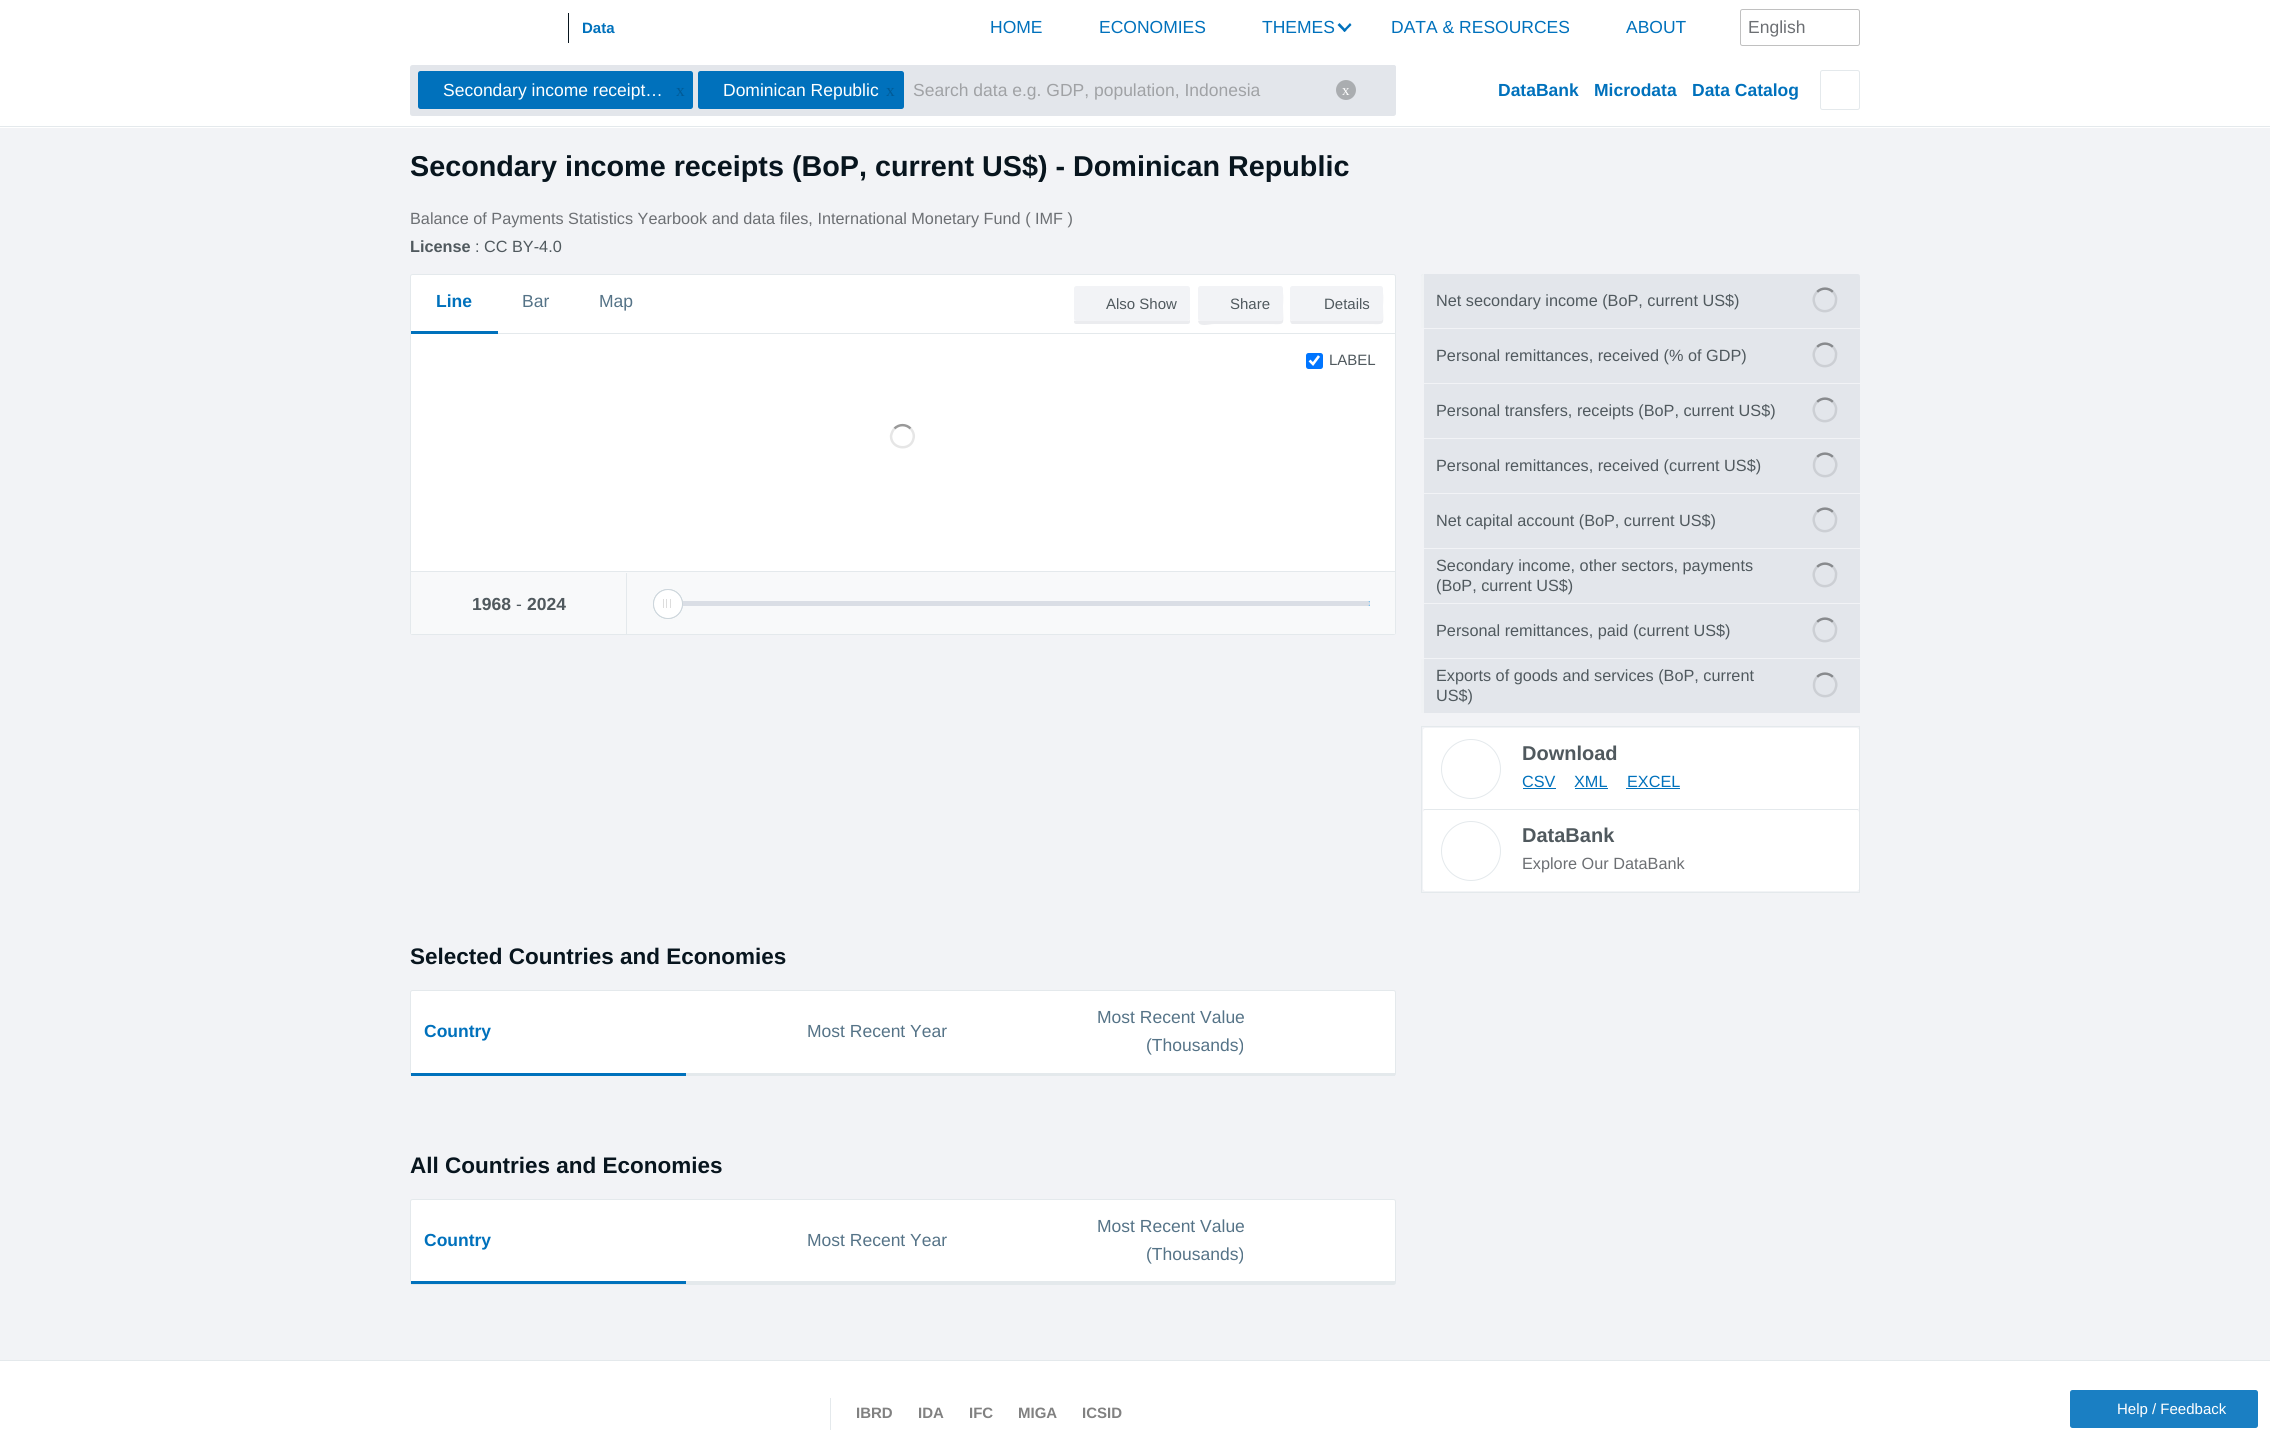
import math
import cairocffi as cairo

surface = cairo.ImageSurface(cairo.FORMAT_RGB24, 2270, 1439)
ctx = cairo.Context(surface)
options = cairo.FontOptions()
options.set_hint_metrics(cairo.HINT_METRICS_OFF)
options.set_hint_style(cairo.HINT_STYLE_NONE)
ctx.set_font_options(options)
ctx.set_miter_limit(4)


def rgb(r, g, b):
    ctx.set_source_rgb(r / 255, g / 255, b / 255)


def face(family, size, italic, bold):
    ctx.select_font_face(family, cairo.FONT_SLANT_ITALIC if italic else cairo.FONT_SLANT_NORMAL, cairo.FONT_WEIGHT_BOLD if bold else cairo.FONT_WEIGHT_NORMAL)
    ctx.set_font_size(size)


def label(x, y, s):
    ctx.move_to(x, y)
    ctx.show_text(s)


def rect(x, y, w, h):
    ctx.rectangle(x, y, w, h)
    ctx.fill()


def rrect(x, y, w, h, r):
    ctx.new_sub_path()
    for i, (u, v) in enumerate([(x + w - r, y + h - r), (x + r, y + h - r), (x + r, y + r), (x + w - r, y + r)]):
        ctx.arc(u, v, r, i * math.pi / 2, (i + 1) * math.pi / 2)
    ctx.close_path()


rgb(242, 243, 246)
ctx.paint()
rgb(255, 255, 255)
rect(0, 0, 2270, 128)
rgb(8, 21, 30)
rect(568, 13, 1, 30)
face('Liberation Sans', 15, 0, 1)
rgb(0, 113, 188)
label(582, 33, 'Data')
face('Liberation Sans', 17.5, 0, 0)
label(990, 33, 'HOME')
label(1099, 33, 'ECONOMIES')
label(1262, 33, 'THEMES')
ctx.new_path()
ctx.move_to(1350, 23)
ctx.line_to(1351.5, 25)
ctx.line_to(1344.5, 32)
ctx.line_to(1343, 30.5)
ctx.close_path()
ctx.fill()
ctx.new_path()
ctx.move_to(1339.5, 23)
ctx.line_to(1346.5, 30.5)
ctx.line_to(1344.5, 32)
ctx.line_to(1337.5, 25)
ctx.close_path()
ctx.fill()
label(1391, 33, 'DATA & RESOURCES')
label(1626, 33, 'ABOUT')
rrect(1740.5, 9.5, 119, 36, 2)
rgb(192, 192, 192)
ctx.set_line_width(1)
ctx.stroke()
rgb(108, 111, 115)
label(1748, 33, 'English')
rgb(228, 233, 236)
rect(0, 126, 2270, 1)
rgb(227, 230, 235)
rrect(410, 65, 986, 51, 2.5)
ctx.fill()
rgb(0, 113, 188)
rrect(418, 71, 275, 38, 2.5)
ctx.fill()
rgb(255, 255, 255)
label(443, 96, 'Secondary income receipt…')
face('Liberation Serif', 17.5, 0, 0)
rgb(0, 90, 150)
label(676, 96, 'x')
rgb(0, 113, 188)
rrect(698, 71, 206, 38, 2.5)
ctx.fill()
face('Liberation Sans', 17.5, 0, 0)
rgb(255, 255, 255)
label(723, 96, 'Dominican Republic')
face('Liberation Serif', 17.5, 0, 0)
rgb(0, 90, 150)
label(886, 96, 'x')
face('Liberation Sans', 17.5, 0, 0)
rgb(160, 162, 165)
label(913, 96, 'Search data e.g. GDP, population, Indonesia')
rgb(170, 173, 176)
ctx.new_path()
ctx.arc(1346, 90, 10, 0, 2 * math.pi)
ctx.fill()
face('Liberation Serif', 15, 0, 0)
rgb(255, 255, 255)
label(1342, 95, 'x')
rgb(227, 230, 235)
ctx.new_path()
ctx.move_to(1359, 65)
ctx.line_to(1393.5, 65)
ctx.curve_to(1395, 65, 1396, 66, 1396, 67.5)
ctx.line_to(1396, 112.5)
ctx.curve_to(1396, 114, 1395, 115, 1393.5, 115)
ctx.line_to(1359, 115)
ctx.close_path()
ctx.fill()
face('Liberation Sans', 17.5, 0, 1)
rgb(0, 113, 188)
label(1498, 96, 'DataBank')
label(1594, 96, 'Microdata')
label(1692, 96, 'Data Catalog')
rrect(1820.5, 70.5, 39, 39, 2)
rgb(228, 233, 236)
ctx.stroke()
face('Liberation Sans', 28.75, 0, 1)
rgb(8, 21, 30)
label(410, 176, 'Secondary income receipts (BoP, current US$) - Dominican Republic')
face('Liberation Sans', 16.25, 0, 0)
rgb(108, 111, 115)
label(410, 224, 'Balance of Payments Statistics Yearbook and data files, International Monetary Fund ( IMF )')
face('Liberation Sans', 16.25, 0, 1)
rgb(80, 89, 94)
label(410, 252, 'License')
face('Liberation Sans', 16.25, 0, 0)
label(475, 252, ': CC BY-4.0')
rgb(255, 255, 255)
rrect(410.5, 274.5, 985, 360, 2)
ctx.fill_preserve()
rgb(228, 233, 236)
ctx.stroke()
rect(498, 333, 897, 1)
rgb(0, 113, 188)
rect(411, 331, 87, 3)
face('Liberation Sans', 17.5, 0, 1)
label(436, 307, 'Line')
face('Liberation Sans', 17.5, 0, 0)
rgb(85, 115, 135)
label(522, 307, 'Bar')
label(599, 307, 'Map')
rgb(235, 236, 239)
ctx.new_path()
ctx.move_to(1074, 320)
ctx.line_to(1074, 322)
ctx.curve_to(1074, 323, 1075, 324, 1076, 324)
ctx.line_to(1188, 324)
ctx.curve_to(1189, 324, 1190, 323, 1190, 322)
ctx.line_to(1190, 319)
ctx.curve_to(1190, 320, 1189, 321, 1188, 321)
ctx.line_to(1076, 321)
ctx.curve_to(1075, 321, 1074, 321, 1074, 320)
ctx.close_path()
ctx.fill()
rgb(242, 243, 246)
rrect(1074, 286, 116, 35, 2.5)
ctx.fill()
face('Liberation Sans', 15, 0, 0)
rgb(80, 89, 94)
label(1106, 309, 'Also Show')
rgb(235, 236, 239)
ctx.new_path()
ctx.move_to(1198, 320)
ctx.curve_to(1198, 328, 1209, 324, 1214, 324)
ctx.line_to(1267, 324)
ctx.curve_to(1287, 324, 1283, 327, 1283, 306)
ctx.curve_to(1283, 304, 1284, 292, 1282, 290)
ctx.line_to(1282, 319)
ctx.curve_to(1282, 320, 1281, 321, 1280, 321)
ctx.line_to(1200, 321)
ctx.curve_to(1199, 321, 1198, 321, 1198, 320)
ctx.close_path()
ctx.fill()
rgb(242, 243, 246)
rrect(1198, 286, 85, 35, 2.5)
ctx.fill()
rgb(80, 89, 94)
label(1230, 309, 'Share')
rgb(235, 236, 239)
ctx.new_path()
ctx.move_to(1290, 319)
ctx.curve_to(1290, 320, 1290, 323, 1292, 324)
ctx.line_to(1366, 324)
ctx.curve_to(1387, 324, 1383, 327, 1383, 306)
ctx.curve_to(1383, 304, 1384, 292, 1382, 290)
ctx.line_to(1382, 319)
ctx.curve_to(1382, 320, 1381, 321, 1380, 321)
ctx.line_to(1292, 321)
ctx.curve_to(1291, 321, 1290, 320, 1290, 319)
ctx.close_path()
ctx.fill()
rgb(242, 243, 246)
rrect(1290, 286, 93, 35, 2.5)
ctx.fill()
rgb(80, 89, 94)
label(1324, 309, 'Details')
rgb(0, 117, 255)
rrect(1306, 353, 17, 16, 2.5)
ctx.fill()
ctx.new_path()
ctx.move_to(1309.5, 360.5)
ctx.line_to(1313, 364)
ctx.line_to(1319, 356)
rgb(255, 255, 255)
ctx.set_line_width(2.6)
ctx.stroke()
rgb(80, 89, 94)
label(1329, 365, 'LABEL')
ctx.new_path()
ctx.move_to(894.5, 428.5)
ctx.curve_to(899, 424, 906, 424, 910.5, 428.5)
rgb(153, 153, 153)
ctx.set_line_width(2.5)
ctx.stroke()
ctx.new_path()
ctx.move_to(910.5, 428.5)
ctx.curve_to(913, 431, 914.5, 435, 913.5, 438.5)
ctx.curve_to(911, 451.5, 891, 449.5, 891, 436)
ctx.curve_to(891.5, 433.5, 892.5, 430.5, 894.5, 428.5)
ctx.set_source_rgba(0, 0, 0, 0.1)
ctx.stroke()
rgb(248, 249, 250)
rect(411, 572, 984, 62)
rgb(228, 233, 236)
rect(411, 571, 984, 1)
rect(626, 573, 1, 61)
face('Liberation Sans', 17.5, 0, 1)
rgb(80, 89, 94)
label(472, 610, '1968')
face('Liberation Sans', 17.5, 0, 0)
label(516, 610, '-')
face('Liberation Sans', 17.5, 0, 1)
label(527, 610, '2024')
rgb(108, 190, 240)
rect(1367, 601, 3, 5)
rgb(218, 222, 229)
ctx.new_path()
ctx.move_to(653, 601)
ctx.line_to(1367.5, 601)
ctx.curve_to(1369, 601, 1370, 602, 1370, 603.5)
ctx.curve_to(1370, 605, 1369, 606, 1367.5, 606)
ctx.line_to(653, 606)
ctx.close_path()
ctx.fill()
ctx.arc(668, 604, 14.5, 0, 2 * math.pi)
rgb(204, 213, 219)
ctx.set_line_width(1)
ctx.stroke()
rgb(255, 255, 255)
ctx.arc(668, 604, 14.5, 0, 2 * math.pi)
ctx.fill_preserve()
rgb(204, 213, 219)
ctx.stroke()
rgb(221, 221, 221)
rect(670, 599, 1, 9)
rect(663, 599, 1, 9)
rect(666, 599, 1, 9)
rgb(227, 230, 235)
ctx.new_path()
ctx.move_to(1423.5, 274)
ctx.line_to(1857.5, 274)
ctx.curve_to(1859, 274, 1860, 275, 1860, 276.5)
ctx.line_to(1860, 328)
ctx.line_to(1421, 328)
ctx.line_to(1421, 276.5)
ctx.curve_to(1421, 275, 1422, 274, 1423.5, 274)
ctx.close_path()
ctx.fill()
rgb(240, 242, 244)
ctx.new_path()
ctx.move_to(1423.5, 274)
ctx.line_to(1424, 274)
ctx.line_to(1424, 328)
ctx.line_to(1421, 328)
ctx.line_to(1421, 276.5)
ctx.curve_to(1421, 275, 1422, 274, 1423.5, 274)
ctx.close_path()
ctx.fill()
face('Liberation Sans', 16.25, 0, 0)
rgb(80, 89, 94)
label(1436, 306, 'Net secondary income (BoP, current US$)')
ctx.new_path()
ctx.move_to(1817, 292)
ctx.curve_to(1821.5, 287.5, 1828.5, 287.5, 1833, 292)
rgb(136, 138, 141)
ctx.set_line_width(2.5)
ctx.stroke()
ctx.new_path()
ctx.move_to(1833, 292)
ctx.curve_to(1835, 294, 1836.5, 297, 1836, 300)
ctx.curve_to(1836, 313.5, 1816.5, 315.5, 1814, 302)
ctx.curve_to(1813, 298.5, 1814.5, 294.5, 1817, 292)
rgb(204, 207, 212)
ctx.stroke()
rgb(227, 230, 235)
rect(1424, 329, 436, 54)
rgb(80, 89, 94)
label(1436, 361, 'Personal remittances, received (% of GDP)')
ctx.new_path()
ctx.move_to(1817, 347)
ctx.curve_to(1821.5, 342.5, 1828.5, 342.5, 1833, 347)
rgb(136, 138, 141)
ctx.stroke()
ctx.new_path()
ctx.move_to(1833, 347)
ctx.curve_to(1835, 349, 1836.5, 352, 1836, 355)
ctx.curve_to(1836, 368.5, 1816.5, 370.5, 1814, 357)
ctx.curve_to(1813, 353.5, 1814.5, 349.5, 1817, 347)
rgb(204, 207, 212)
ctx.stroke()
rgb(227, 230, 235)
rect(1424, 384, 436, 54)
rgb(80, 89, 94)
label(1436, 416, 'Personal transfers, receipts (BoP, current US$)')
ctx.new_path()
ctx.move_to(1817, 402)
ctx.curve_to(1821.5, 397.5, 1828.5, 397.5, 1833, 402)
rgb(136, 138, 141)
ctx.stroke()
ctx.new_path()
ctx.move_to(1833, 402)
ctx.curve_to(1835, 404, 1836.5, 407, 1836, 410)
ctx.curve_to(1836, 423.5, 1816.5, 425.5, 1814, 412)
ctx.curve_to(1813, 408.5, 1814.5, 404.5, 1817, 402)
rgb(204, 207, 212)
ctx.stroke()
rgb(227, 230, 235)
rect(1424, 439, 436, 54)
rgb(80, 89, 94)
label(1436, 471, 'Personal remittances, received (current US$)')
ctx.new_path()
ctx.move_to(1817, 457)
ctx.curve_to(1821.5, 452.5, 1828.5, 452.5, 1833, 457)
rgb(136, 138, 141)
ctx.stroke()
ctx.new_path()
ctx.move_to(1833, 457)
ctx.curve_to(1835.5, 459.5, 1837, 463.5, 1836, 467)
ctx.curve_to(1833.5, 480.5, 1813.5, 478.5, 1814, 465)
ctx.curve_to(1814, 462, 1815, 459, 1817, 457)
rgb(204, 207, 212)
ctx.stroke()
rgb(227, 230, 235)
rect(1424, 494, 436, 54)
rgb(80, 89, 94)
label(1436, 526, 'Net capital account (BoP, current US$)')
ctx.new_path()
ctx.move_to(1817, 512)
ctx.curve_to(1821.5, 507.5, 1828.5, 507.5, 1833, 512)
rgb(136, 138, 141)
ctx.stroke()
ctx.new_path()
ctx.move_to(1833, 512)
ctx.curve_to(1835, 514, 1836.5, 517, 1836, 520)
ctx.curve_to(1836, 533.5, 1816.5, 535.5, 1814, 522)
ctx.curve_to(1813, 518.5, 1814.5, 514.5, 1817, 512)
rgb(204, 207, 212)
ctx.stroke()
rgb(227, 230, 235)
rect(1424, 549, 436, 54)
rgb(80, 89, 94)
label(1436, 571, 'Secondary income, other sectors, payments')
label(1436, 591, '(BoP, current US$)')
ctx.new_path()
ctx.move_to(1817, 567)
ctx.curve_to(1821.5, 562.5, 1828.5, 562.5, 1833, 567)
rgb(136, 138, 141)
ctx.stroke()
ctx.new_path()
ctx.move_to(1833, 567)
ctx.curve_to(1835, 569, 1836.5, 572, 1836, 575)
ctx.curve_to(1836, 588.5, 1816.5, 590.5, 1814, 577)
ctx.curve_to(1813, 573.5, 1814.5, 569.5, 1817, 567)
rgb(204, 207, 212)
ctx.stroke()
rgb(227, 230, 235)
rect(1424, 604, 436, 54)
rgb(80, 89, 94)
label(1436, 636, 'Personal remittances, paid (current US$)')
ctx.new_path()
ctx.move_to(1817, 622)
ctx.curve_to(1821.5, 617.5, 1828.5, 617.5, 1833, 622)
rgb(136, 138, 141)
ctx.stroke()
ctx.new_path()
ctx.move_to(1833, 622)
ctx.curve_to(1835, 624, 1836.5, 627, 1836, 630)
ctx.curve_to(1836, 643.5, 1816.5, 645.5, 1814, 632)
ctx.curve_to(1813, 628.5, 1814.5, 624.5, 1817, 622)
rgb(204, 207, 212)
ctx.stroke()
rgb(227, 230, 235)
rect(1421, 659, 439, 54)
rgb(240, 242, 244)
rect(1421, 659, 3, 54)
rgb(80, 89, 94)
label(1436, 681, 'Exports of goods and services (BoP, current')
label(1436, 701, 'US$)')
ctx.new_path()
ctx.move_to(1817, 677)
ctx.curve_to(1821.5, 672.5, 1828.5, 672.5, 1833, 677)
rgb(136, 138, 141)
ctx.stroke()
ctx.new_path()
ctx.move_to(1833, 677)
ctx.curve_to(1835.5, 679.5, 1837, 683.5, 1836, 687)
ctx.curve_to(1833.5, 700.5, 1813.5, 698.5, 1814, 685)
ctx.curve_to(1814, 682, 1815, 679, 1817, 677)
rgb(204, 207, 212)
ctx.stroke()
ctx.rectangle(1421.5, 726.5, 438, 166)
rgb(228, 233, 236)
ctx.set_line_width(1)
ctx.stroke()
rgb(255, 255, 255)
rrect(1423, 728, 436, 82, 2.5)
ctx.fill()
rgb(228, 233, 236)
rect(1424, 809, 434, 1)
ctx.arc(1471, 769, 29.5, 0, 2 * math.pi)
ctx.stroke()
face('Liberation Sans', 20, 0, 1)
rgb(80, 89, 94)
label(1522, 760, 'Download')
face('Liberation Sans', 16.25, 0, 0)
rgb(0, 113, 188)
label(1522, 787, 'CSV')
rect(1523, 788, 33, 1)
label(1574, 787, 'XML')
rect(1575, 788, 33, 1)
label(1627, 787, 'EXCEL')
rect(1626, 788, 54, 1)
rgb(255, 255, 255)
rrect(1423, 810, 436, 81, 2.5)
ctx.fill()
ctx.arc(1471, 851, 29.5, 0, 2 * math.pi)
rgb(228, 233, 236)
ctx.stroke()
face('Liberation Sans', 20, 0, 1)
rgb(80, 89, 94)
label(1522, 842, 'DataBank')
face('Liberation Sans', 16.25, 0, 0)
rgb(108, 111, 115)
label(1522, 869, 'Explore Our DataBank')
face('Liberation Sans', 22.5, 0, 1)
rgb(8, 21, 30)
label(410, 964, 'Selected Countries and Economies')
rgb(255, 255, 255)
rrect(410.5, 990.5, 985, 85, 2)
ctx.fill_preserve()
rgb(228, 233, 236)
ctx.stroke()
rgb(0, 113, 188)
rect(411, 1073, 275, 3)
face('Liberation Sans', 17.5, 0, 1)
label(424, 1037, 'Country')
rgb(228, 233, 236)
rect(686, 1073, 597, 2)
face('Liberation Sans', 17.5, 0, 0)
rgb(85, 115, 135)
label(807, 1037, 'Most Recent Year')
label(1097, 1023, 'Most Recent Value')
label(1146, 1051, '(Thousands)')
rgb(228, 233, 236)
rect(1283, 1073, 112, 3)
face('Liberation Sans', 22.5, 0, 1)
rgb(8, 21, 30)
label(410, 1173, 'All Countries and Economies')
rgb(255, 255, 255)
rrect(410.5, 1199.5, 985, 85, 2)
ctx.fill_preserve()
rgb(228, 233, 236)
ctx.stroke()
rgb(0, 113, 188)
rect(411, 1281, 275, 3)
face('Liberation Sans', 17.5, 0, 1)
label(424, 1246, 'Country')
rgb(228, 233, 236)
rect(686, 1281, 709, 3)
face('Liberation Sans', 17.5, 0, 0)
rgb(85, 115, 135)
label(807, 1246, 'Most Recent Year')
label(1097, 1232, 'Most Recent Value')
label(1146, 1260, '(Thousands)')
rgb(255, 255, 255)
rect(0, 1361, 2270, 78)
rgb(228, 233, 236)
rect(0, 1360, 2270, 1)
rect(830, 1398, 1, 32)
face('Liberation Sans', 15, 0, 1)
rgb(129, 129, 129)
label(856, 1418, 'IBRD')
label(918, 1418, 'IDA')
label(969, 1418, 'IFC')
label(1018, 1418, 'MIGA')
label(1082, 1418, 'ICSID')
rgb(26, 127, 195)
rrect(2070, 1390, 188, 38, 2.5)
ctx.fill()
face('Liberation Sans', 15, 0, 0)
rgb(255, 255, 255)
label(2117, 1414, 'Help / Feedback')
surface.write_to_png('render.png')
